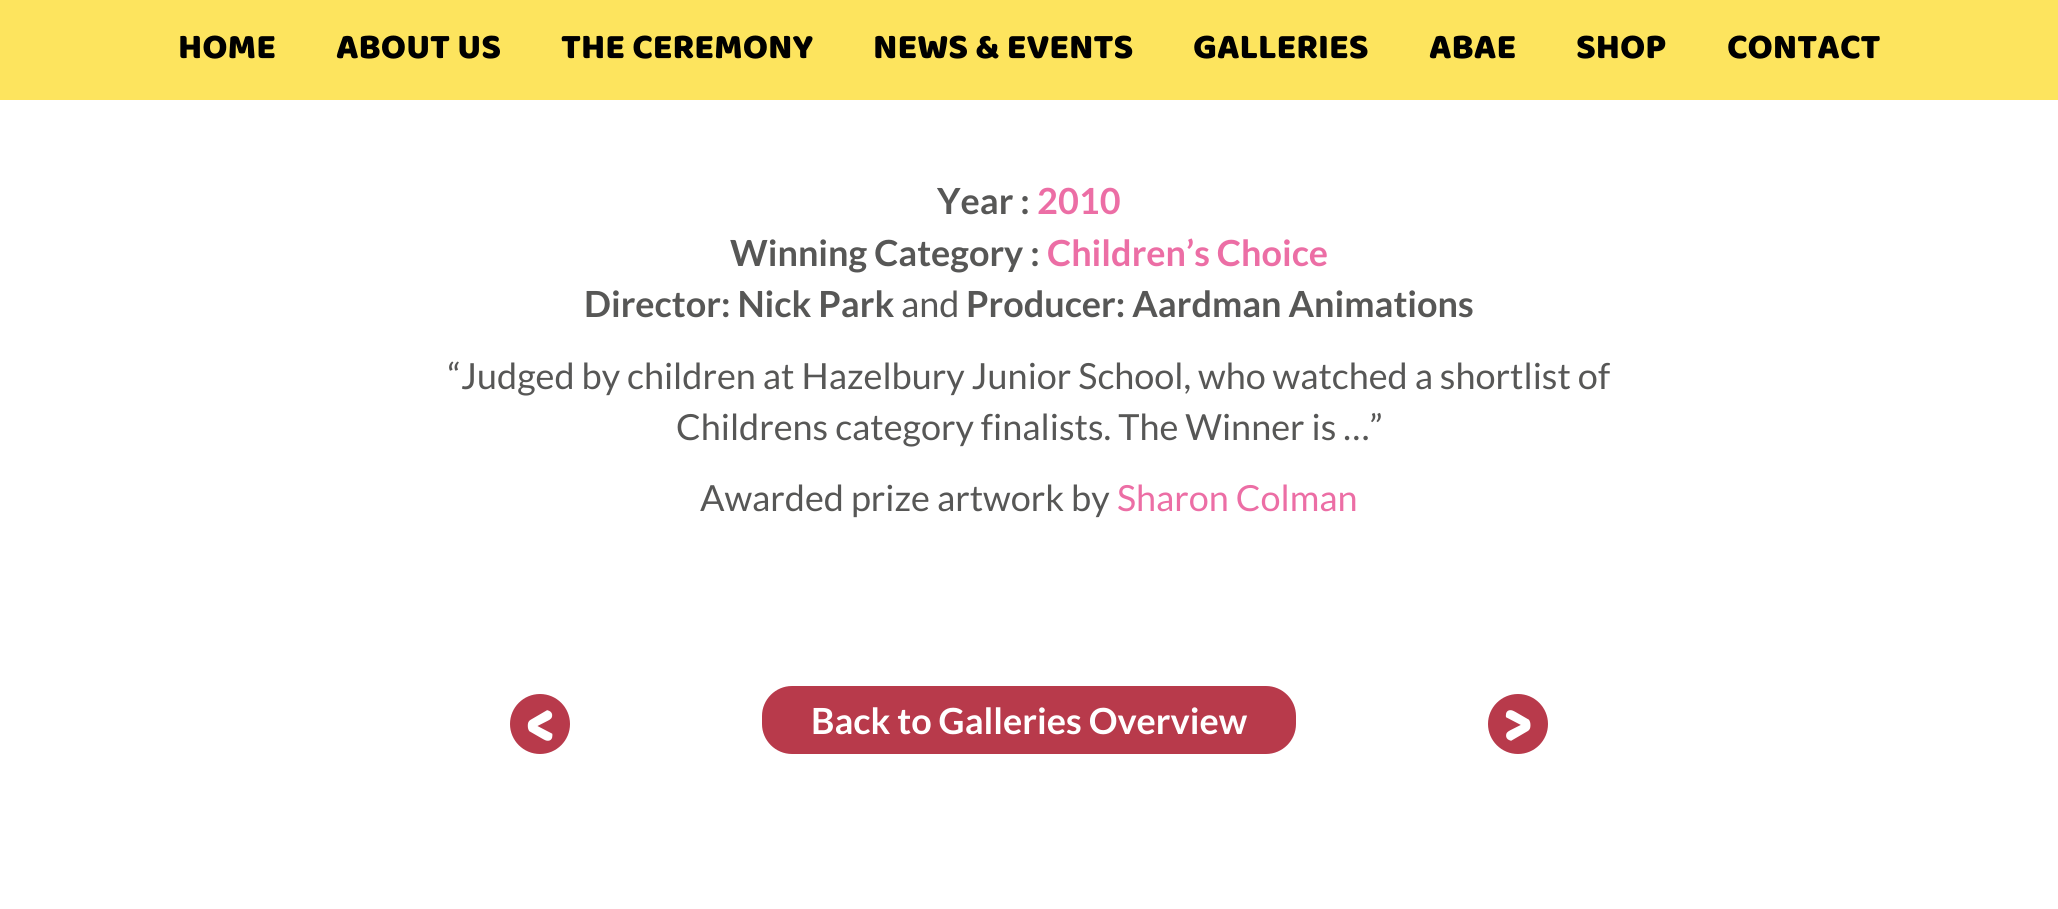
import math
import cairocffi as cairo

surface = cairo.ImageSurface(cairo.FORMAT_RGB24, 2058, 909)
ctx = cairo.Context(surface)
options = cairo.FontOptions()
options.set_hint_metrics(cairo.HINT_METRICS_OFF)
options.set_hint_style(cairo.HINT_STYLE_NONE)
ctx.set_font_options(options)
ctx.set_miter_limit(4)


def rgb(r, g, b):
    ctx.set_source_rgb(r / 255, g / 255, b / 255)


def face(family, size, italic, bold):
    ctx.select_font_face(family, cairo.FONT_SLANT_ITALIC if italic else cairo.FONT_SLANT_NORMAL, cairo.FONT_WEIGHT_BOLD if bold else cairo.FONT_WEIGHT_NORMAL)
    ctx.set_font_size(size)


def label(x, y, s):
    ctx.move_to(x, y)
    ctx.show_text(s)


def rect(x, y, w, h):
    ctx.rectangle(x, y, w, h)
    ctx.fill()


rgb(255, 255, 255)
ctx.paint()
rgb(253, 228, 94)
rect(0, 0, 2058, 100)
face('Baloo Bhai', 36, 0, 0)
rgb(0, 0, 0)
label(178, 58, 'HOME')
label(336, 58, 'ABOUT US')
label(561, 58, 'THE CEREMONY')
label(873, 58, 'NEWS & EVENTS')
label(1193, 58, 'GALLERIES')
label(1429, 58, 'ABAE')
label(1576, 58, 'SHOP')
label(1727, 58, 'CONTACT')
face('Lato', 36, 0, 1)
rgb(87, 87, 86)
label(937, 214, 'Year :')
rgb(236, 110, 165)
label(1037, 214, '2010')
rgb(87, 87, 86)
label(730, 266, 'Winning Category :')
rgb(236, 110, 165)
label(1047, 266, 'Children’s Choice')
rgb(87, 87, 86)
label(584, 317, 'Director: Nick Park')
face('Lato', 36, 0, 0)
label(901, 317, 'and')
face('Lato', 36, 0, 1)
label(966, 317, 'Producer: Aardman Animations')
face('Lato', 36, 0, 0)
label(448, 389, '“Judged by children at Hazelbury Junior School, who watched a shortlist of')
label(676, 440, 'Childrens category finalists. The Winner is …”')
label(700, 511, 'Awarded prize artwork by')
rgb(236, 110, 165)
label(1117, 511, 'Sharon Colman')
rgb(184, 58, 75)
ctx.new_path()
ctx.arc(540, 724, 30, 0, 2 * math.pi)
ctx.fill()
face('Baloo Bhai', 60, 0, 0)
rgb(255, 255, 255)
label(526, 741, '<')
rgb(184, 58, 75)
ctx.new_path()
ctx.move_to(792, 686)
ctx.line_to(1082, 686)
ctx.line_to(1082, 754)
ctx.line_to(792, 754)
ctx.curve_to(775.5, 754, 762, 740.5, 762, 724)
ctx.line_to(762, 716)
ctx.curve_to(762, 699.5, 775.5, 686, 792, 686)
ctx.close_path()
ctx.fill()
ctx.new_path()
ctx.move_to(1082, 686)
ctx.line_to(1266, 686)
ctx.curve_to(1282.5, 686, 1296, 699.5, 1296, 716)
ctx.line_to(1296, 724)
ctx.curve_to(1296, 740.5, 1282.5, 754, 1266, 754)
ctx.line_to(1082, 754)
ctx.close_path()
ctx.fill()
face('Lato', 36, 0, 1)
rgb(255, 255, 255)
label(811, 734, 'Back to Galleries Overview')
rgb(184, 58, 75)
ctx.new_path()
ctx.arc(1518, 724, 30, 0, 2 * math.pi)
ctx.fill()
face('Baloo Bhai', 60, 0, 0)
rgb(255, 255, 255)
label(1504, 741, '>')
surface.write_to_png('render.png')
